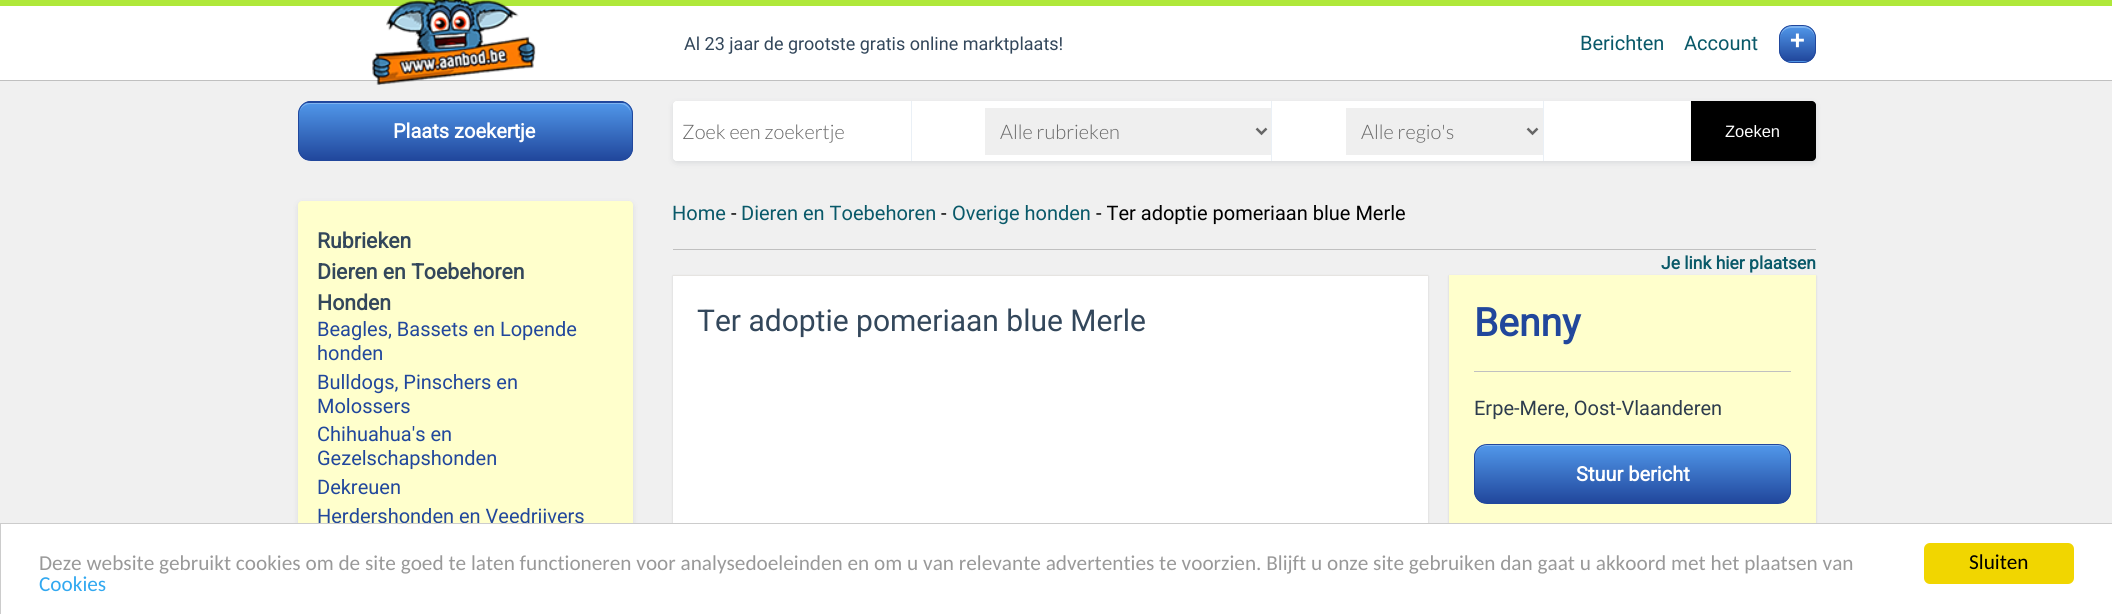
import math
import cairocffi as cairo

surface = cairo.ImageSurface(cairo.FORMAT_RGB24, 2112, 614)
ctx = cairo.Context(surface)
options = cairo.FontOptions()
options.set_hint_metrics(cairo.HINT_METRICS_OFF)
options.set_hint_style(cairo.HINT_STYLE_NONE)
ctx.set_font_options(options)
ctx.set_miter_limit(4)


def rgb(r, g, b):
    ctx.set_source_rgb(r / 255, g / 255, b / 255)


def face(family, size, italic, bold):
    ctx.select_font_face(family, cairo.FONT_SLANT_ITALIC if italic else cairo.FONT_SLANT_NORMAL, cairo.FONT_WEIGHT_BOLD if bold else cairo.FONT_WEIGHT_NORMAL)
    ctx.set_font_size(size)


def label(x, y, s):
    ctx.move_to(x, y)
    ctx.show_text(s)


def rect(x, y, w, h):
    ctx.rectangle(x, y, w, h)
    ctx.fill()


def rrect(x, y, w, h, r):
    ctx.new_sub_path()
    for i, (u, v) in enumerate([(x + w - r, y + h - r), (x + r, y + h - r), (x + r, y + r), (x + w - r, y + r)]):
        ctx.arc(u, v, r, i * math.pi / 2, (i + 1) * math.pi / 2)
    ctx.close_path()


def soft_shadow(x, y, w, h, r, blur, alpha):
    ctx.push_group_with_content(cairo.CONTENT_ALPHA)
    ctx.set_operator(cairo.OPERATOR_SOURCE)
    for i in range(15, -16, -2):
        e = blur * i / 6
        if min(w, h) + 2 * e > 0:
            ctx.set_source_rgba(0, 0, 0, alpha * math.erfc((i - 1) / 8.5) / 2)
            rrect(x - e, y - e, w + 2 * e, h + 2 * e, max(0, min(r + e + blur * .6, min(w, h) / 2 + e)))
            ctx.fill()
    ctx.mask(ctx.pop_group())


def image(path, x, y, w, h):
    ctx.save()
    ctx.set_source_surface(cairo.ImageSurface.create_from_png(path), x, y)
    ctx.rectangle(x, y, w, h)
    ctx.fill()
    ctx.restore()


rgb(240, 240, 240)
ctx.paint()
rgb(175, 232, 58)
rect(0, 0, 2112, 6)
rgb(255, 255, 255)
rect(0, 6, 2112, 74)
rgb(192, 192, 192)
rect(0, 80, 2112, 1)
image('image0.png', 372, 0, 164, 85)
face('Roboto', 18, 0, 0)
rgb(51, 71, 91)
label(684, 50, 'Al 23 jaar de grootste gratis online marktplaats!')
face('Roboto', 20, 0, 0)
rgb(9, 89, 105)
label(1580, 50, 'Berichten')
label(1684, 50, 'Account')
ctx.save()
rrect(1779, 25, 37, 38, 13)
ctx.clip()
gradient = cairo.LinearGradient(1798, 26, 1798, 61)
gradient.add_color_stop_rgba(0, 0.318, 0.596, 0.918, 1)
gradient.add_color_stop_rgba(1, 0.129, 0.278, 0.612, 1)
ctx.set_source(gradient)
rect(1779, 26, 37, 35)
gradient = cairo.LinearGradient(1798, 61, 1798, 96)
gradient.add_color_stop_rgba(0, 0.318, 0.596, 0.918, 1)
gradient.add_color_stop_rgba(1, 0.129, 0.278, 0.612, 1)
ctx.set_source(gradient)
rect(1779, 61, 37, 2)
ctx.restore()
rgb(125, 179, 240)
ctx.new_path()
ctx.move_to(1791, 28)
ctx.line_to(1804, 28)
ctx.curve_to(1810, 28, 1815, 33, 1815, 39)
ctx.curve_to(1815, 33, 1813, 27.5, 1806, 26)
ctx.line_to(1797.5, 26)
ctx.line_to(1789, 26)
ctx.curve_to(1782, 27.5, 1780, 33, 1780, 39)
ctx.curve_to(1780, 33, 1785, 28, 1791, 28)
ctx.close_path()
ctx.fill()
rrect(1779.5, 25.5, 36, 37, 12.5)
rgb(33, 71, 156)
ctx.set_line_width(1)
ctx.stroke()
face('Roboto', 25, 0, 1)
rgb(255, 255, 255)
label(1790, 49, '+')
ctx.save()
rrect(298, 101, 335, 60, 13)
ctx.clip()
gradient = cairo.LinearGradient(465, 45, 465, 103)
gradient.add_color_stop_rgba(0, 0.318, 0.596, 0.918, 1)
gradient.add_color_stop_rgba(1, 0.129, 0.278, 0.612, 1)
ctx.set_source(gradient)
rect(298, 101, 335, 2)
gradient = cairo.LinearGradient(465, 102, 465, 160)
gradient.add_color_stop_rgba(0, 0.318, 0.596, 0.918, 1)
gradient.add_color_stop_rgba(1, 0.129, 0.278, 0.612, 1)
ctx.set_source(gradient)
rect(298, 103, 335, 57)
ctx.restore()
rgb(125, 179, 240)
ctx.new_path()
ctx.move_to(310, 104)
ctx.line_to(620, 104)
ctx.curve_to(626, 104, 631, 109, 631, 115)
ctx.curve_to(631, 109, 628, 104, 622, 103)
ctx.line_to(310, 103)
ctx.curve_to(303, 103, 299, 109, 299, 115)
ctx.curve_to(299, 109, 304, 104, 310, 104)
ctx.close_path()
ctx.fill()
rrect(298.5, 101.5, 334, 59, 12.5)
rgb(33, 71, 156)
ctx.stroke()
face('Roboto', 20, 0, 1)
rgb(255, 255, 255)
label(393, 138, 'Plaats zoekertje')
rgb(45, 62, 80)
soft_shadow(673, 103, 1143, 60, 4, 3, 0.12)
rgb(255, 255, 255)
rrect(673, 101, 1143, 60, 4)
ctx.fill()
ctx.new_path()
ctx.move_to(677, 101)
ctx.line_to(913, 101)
ctx.line_to(913, 161)
ctx.line_to(677, 161)
ctx.curve_to(675, 161, 673, 159, 673, 157)
ctx.line_to(673, 105)
ctx.curve_to(673, 103, 675, 101, 677, 101)
ctx.close_path()
ctx.fill()
rgb(234, 240, 246)
rect(911, 101, 1, 60)
face('Lato Light', 20, 0, 0)
rgb(102, 102, 102)
label(682, 139, 'Zoek een zoekertje')
rgb(234, 240, 246)
rect(1271, 101, 1, 60)
rgb(239, 239, 239)
rect(985, 108, 286, 47)
ctx.new_path()
ctx.move_to(1256.5, 128.5)
ctx.line_to(1261.5, 133.5)
ctx.line_to(1266.5, 128.5)
rgb(102, 102, 102)
ctx.set_line_width(2.5)
ctx.stroke()
label(1000, 139, 'Alle rubrieken')
rgb(234, 240, 246)
rect(1543, 101, 1, 60)
rgb(239, 239, 239)
rect(1346, 108, 197, 47)
ctx.new_path()
ctx.move_to(1527.5, 128.5)
ctx.line_to(1532.5, 133.5)
ctx.line_to(1537.5, 128.5)
rgb(102, 102, 102)
ctx.stroke()
label(1361, 139, 'Alle regio\'s')
rgb(0, 0, 0)
ctx.new_path()
ctx.move_to(1691, 101)
ctx.line_to(1812, 101)
ctx.curve_to(1814, 101, 1816, 103, 1816, 105)
ctx.line_to(1816, 157)
ctx.curve_to(1816, 159, 1814, 161, 1812, 161)
ctx.line_to(1691, 161)
ctx.close_path()
ctx.fill()
face('Liberation Sans', 16.5, 0, 0)
rgb(255, 255, 255)
label(1725, 137, 'Zoeken')
rgb(45, 62, 80)
soft_shadow(298, 203, 335, 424, 4, 3, 0.12)
rgb(255, 255, 204)
rrect(298, 201, 335, 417, 4)
ctx.fill()
face('Roboto', 21.25, 0, 1)
rgb(51, 71, 91)
label(317, 248, 'Rubrieken')
label(317, 279, 'Dieren en Toebehoren')
label(317, 310, 'Honden')
face('Roboto', 20, 0, 0)
rgb(33, 71, 156)
label(317, 336, 'Beagles, Bassets en Lopende')
label(317, 360, 'honden')
label(317, 389, 'Bulldogs, Pinschers en')
label(317, 413, 'Molossers')
label(317, 441, 'Chihuahua\'s en')
label(317, 465, 'Gezelschapshonden')
label(317, 494, 'Dekreuen')
label(317, 523, 'Herdershonden en Veedrijvers')
rgb(9, 89, 105)
label(672, 220, 'Home')
rgb(0, 0, 0)
label(731, 220, '-')
rgb(9, 89, 105)
label(741, 220, 'Dieren en Toebehoren')
rgb(0, 0, 0)
label(941, 220, '-')
rgb(9, 89, 105)
label(952, 220, 'Overige honden')
rgb(0, 0, 0)
label(1096, 220, '- Ter adoptie pomeriaan blue Merle')
rgb(192, 192, 192)
rect(673, 249, 1143, 1)
face('Roboto', 17.5, 0, 1)
rgb(9, 89, 105)
label(1661, 269, 'Je link hier plaatsen')
rgb(0, 0, 0)
soft_shadow(673, 276, 755, 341, 0, 1, 0.14)
rgb(255, 255, 255)
rect(673, 276, 755, 247)
rgb(230, 228, 225)
rect(673, 275, 755, 1)
face('Roboto', 30, 0, 0)
rgb(51, 71, 91)
label(697, 331, 'Ter adoptie pomeriaan blue Merle')
rgb(0, 0, 0)
soft_shadow(1449, 276, 367, 254, 0, 1, 0.14)
rgb(255, 255, 204)
rect(1449, 275, 367, 248)
rgb(192, 192, 192)
rect(1474, 371, 317, 1)
face('Roboto', 39, 0, 1)
rgb(33, 71, 156)
label(1474, 336, 'Benny')
face('Roboto', 20, 0, 0)
rgb(45, 60, 77)
label(1474, 415, 'Erpe-Mere, Oost-Vlaanderen')
ctx.save()
rrect(1474, 444, 317, 60, 13)
ctx.clip()
gradient = cairo.LinearGradient(1633, 445, 1633, 503)
gradient.add_color_stop_rgba(0, 0.318, 0.596, 0.918, 1)
gradient.add_color_stop_rgba(1, 0.129, 0.278, 0.612, 1)
ctx.set_source(gradient)
rect(1474, 445, 317, 58)
ctx.restore()
rgb(125, 179, 240)
ctx.new_path()
ctx.move_to(1486, 446)
ctx.line_to(1779, 446)
ctx.curve_to(1785, 446, 1790, 451, 1790, 458)
ctx.line_to(1790, 456)
ctx.curve_to(1790, 450, 1785, 445, 1779, 445)
ctx.line_to(1486, 445)
ctx.curve_to(1480, 445, 1475, 450, 1475, 456)
ctx.line_to(1475, 458)
ctx.curve_to(1475, 451, 1480, 446, 1486, 446)
ctx.close_path()
ctx.fill()
rrect(1474.5, 444.5, 316, 59, 12.5)
rgb(33, 71, 156)
ctx.set_line_width(1)
ctx.stroke()
face('Roboto', 20, 0, 1)
rgb(255, 255, 255)
label(1576, 481, 'Stuur bericht')
ctx.rectangle(0.5, 523.5, 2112, 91)
ctx.fill_preserve()
rgb(204, 204, 204)
ctx.stroke()
face('Carlito', 21.25, 0, 0)
rgb(153, 153, 153)
label(39, 570, 'Deze website gebruikt cookies om de site goed te laten functioneren voor analysedoeleinden en om u van relevante advertenties te voorzien. Blijft u onze site gebruiken dan gaat u akkoord met het plaatsen van')
rgb(49, 168, 240)
label(39, 591, 'Cookies')
rgb(241, 214, 0)
rrect(1924, 543, 150, 41, 6)
ctx.fill()
rgb(0, 0, 0)
label(1969, 569, 'Sluiten')
surface.write_to_png('render.png')
